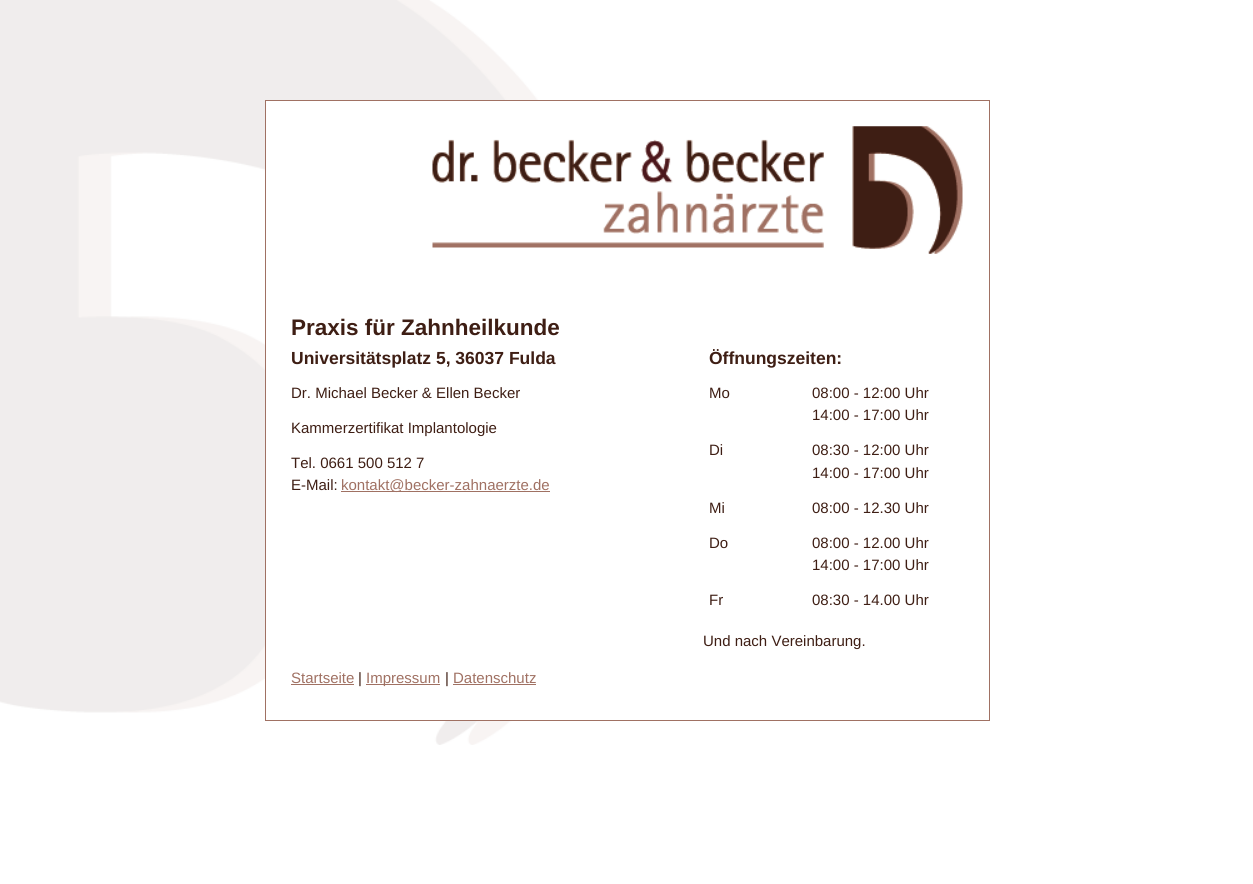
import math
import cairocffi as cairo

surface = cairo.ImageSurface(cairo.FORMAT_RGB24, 1253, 884)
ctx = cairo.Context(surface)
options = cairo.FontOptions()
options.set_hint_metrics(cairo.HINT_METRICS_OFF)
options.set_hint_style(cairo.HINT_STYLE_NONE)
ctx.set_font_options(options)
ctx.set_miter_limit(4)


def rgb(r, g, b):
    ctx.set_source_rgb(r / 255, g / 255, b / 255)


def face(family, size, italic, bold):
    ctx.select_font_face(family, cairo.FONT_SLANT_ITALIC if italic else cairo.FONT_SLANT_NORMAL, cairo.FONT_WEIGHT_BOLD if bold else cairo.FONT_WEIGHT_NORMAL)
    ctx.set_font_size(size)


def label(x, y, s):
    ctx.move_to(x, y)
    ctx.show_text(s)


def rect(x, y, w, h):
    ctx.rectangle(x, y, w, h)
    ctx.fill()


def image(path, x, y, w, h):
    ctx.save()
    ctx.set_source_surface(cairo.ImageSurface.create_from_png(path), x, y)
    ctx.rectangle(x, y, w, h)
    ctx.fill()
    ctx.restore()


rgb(255, 255, 255)
ctx.paint()
image('image0.png', 0, 0, 634, 745)
rgb(255, 255, 255)
rect(266, 101, 368, 619)
ctx.rectangle(265.5, 100.5, 724, 620)
rgb(160, 113, 99)
ctx.set_line_width(1)
ctx.stroke()
image('image1.png', 432, 126, 531, 128)
face('Liberation Sans', 22.5, 0, 1)
rgb(62, 30, 20)
label(291, 335, 'Praxis für Zahnheilkunde')
face('Liberation Sans', 17.5, 0, 1)
label(291, 364, 'Universitätsplatz 5, 36037 Fulda')
face('Liberation Sans', 15, 0, 0)
label(291, 398, 'Dr. Michael Becker & Ellen Becker')
label(291, 433, 'Kammerzertifikat Implantologie')
label(291, 468, 'Tel. 0661 500 512 7')
label(291, 490, 'E-Mail:')
rgb(160, 113, 99)
rect(341, 491, 209, 1)
label(341, 490, 'kontakt@becker-zahnaerzte.de')
label(291, 683, 'Startseite')
rect(291, 684, 63, 1)
rgb(62, 30, 20)
label(358, 683, '|')
rgb(160, 113, 99)
rect(366, 684, 74, 1)
label(366, 683, 'Impressum')
rgb(62, 30, 20)
label(445, 683, '|')
rgb(160, 113, 99)
label(453, 683, 'Datenschutz')
rect(453, 684, 83, 1)
face('Liberation Sans', 17.5, 0, 1)
rgb(62, 30, 20)
label(709, 364, 'Öffnungszeiten:')
face('Liberation Sans', 15, 0, 0)
label(709, 398, 'Mo')
label(812, 398, '08:00 - 12:00 Uhr')
label(812, 420, '14:00 - 17:00 Uhr')
label(709, 455, 'Di')
label(812, 455, '08:30 - 12:00 Uhr')
label(812, 478, '14:00 - 17:00 Uhr')
label(709, 513, 'Mi')
label(812, 513, '08:00 - 12.30 Uhr')
label(709, 548, 'Do')
label(812, 548, '08:00 - 12.00 Uhr')
label(812, 570, '14:00 - 17:00 Uhr')
label(709, 605, 'Fr')
label(812, 605, '08:30 - 14.00 Uhr')
label(703, 646, 'Und nach Vereinbarung.')
surface.write_to_png('render.png')
